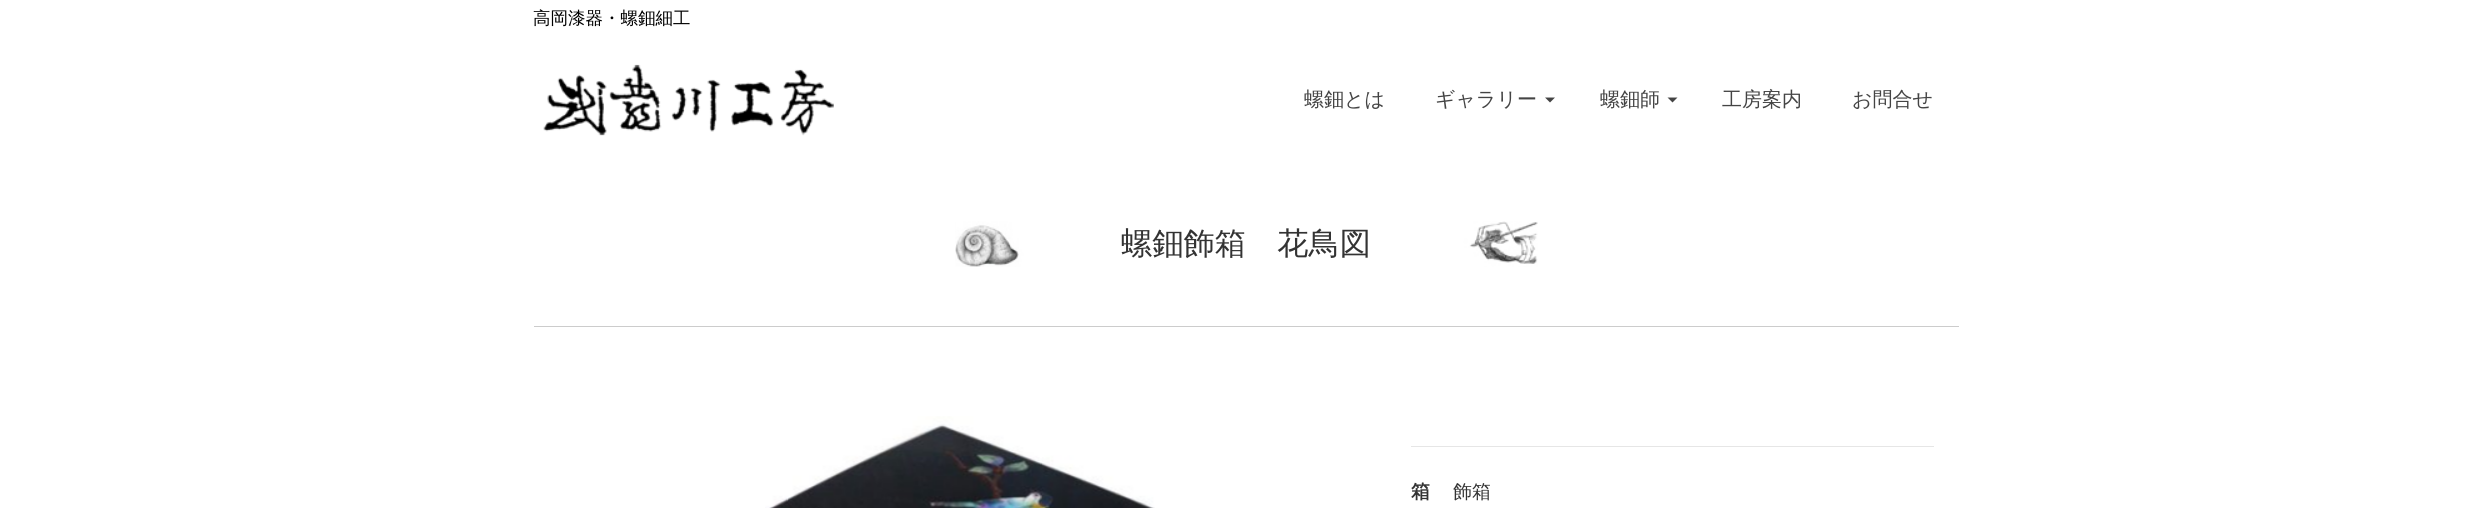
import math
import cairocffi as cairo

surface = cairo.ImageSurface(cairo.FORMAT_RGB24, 2491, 508)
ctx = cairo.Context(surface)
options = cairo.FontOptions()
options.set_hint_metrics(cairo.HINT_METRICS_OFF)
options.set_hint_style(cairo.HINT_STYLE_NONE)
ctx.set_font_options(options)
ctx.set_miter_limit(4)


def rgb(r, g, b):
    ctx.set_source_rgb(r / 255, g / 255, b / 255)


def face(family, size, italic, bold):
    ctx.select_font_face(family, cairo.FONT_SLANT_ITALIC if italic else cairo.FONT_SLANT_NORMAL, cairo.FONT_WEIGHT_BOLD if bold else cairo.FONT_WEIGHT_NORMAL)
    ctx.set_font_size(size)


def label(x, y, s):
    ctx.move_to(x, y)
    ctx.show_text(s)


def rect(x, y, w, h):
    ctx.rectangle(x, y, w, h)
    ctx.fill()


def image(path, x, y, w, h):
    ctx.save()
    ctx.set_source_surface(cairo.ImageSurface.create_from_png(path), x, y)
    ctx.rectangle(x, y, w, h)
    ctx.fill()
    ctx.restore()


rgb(255, 255, 255)
ctx.paint()
face('WenQuanYi Zen Hei Medium', 17.5, 0, 0)
rgb(0, 0, 0)
label(533, 24, '高岡漆器・螺鈿細工')
image('image0.png', 543, 64, 291, 72)
face('WenQuanYi Zen Hei Medium', 20, 0, 0)
rgb(68, 68, 68)
label(1304, 106, '螺鈿とは')
label(1435, 106, 'ギャラリー')
ctx.new_path()
ctx.move_to(1545, 97.5)
ctx.line_to(1550, 102.5)
ctx.line_to(1555, 97.5)
ctx.close_path()
ctx.fill()
label(1600, 106, '螺鈿師')
ctx.new_path()
ctx.move_to(1667.5, 97.5)
ctx.line_to(1672.5, 102.5)
ctx.line_to(1677.5, 97.5)
ctx.close_path()
ctx.fill()
label(1722, 106, '工房案内')
label(1852, 106, 'お問合せ')
image('image1.png', 955, 221, 583, 46)
rgb(204, 204, 204)
rect(534, 326, 1425, 1)
face('WenQuanYi Zen Hei Medium', 31.25, 0, 0)
rgb(51, 51, 51)
label(1121, 254, '螺鈿飾箱　花鳥図')
image('image2.png', 765, 416, 390, 92)
rgb(230, 230, 230)
rect(1411, 446, 523, 1)
face('WenQuanYi Zen Hei', 19, 0, 1)
rgb(51, 51, 51)
label(1411, 498, '箱')
face('WenQuanYi Zen Hei Medium', 19, 0, 0)
label(1453, 498, '飾箱')
surface.write_to_png('render.png')
